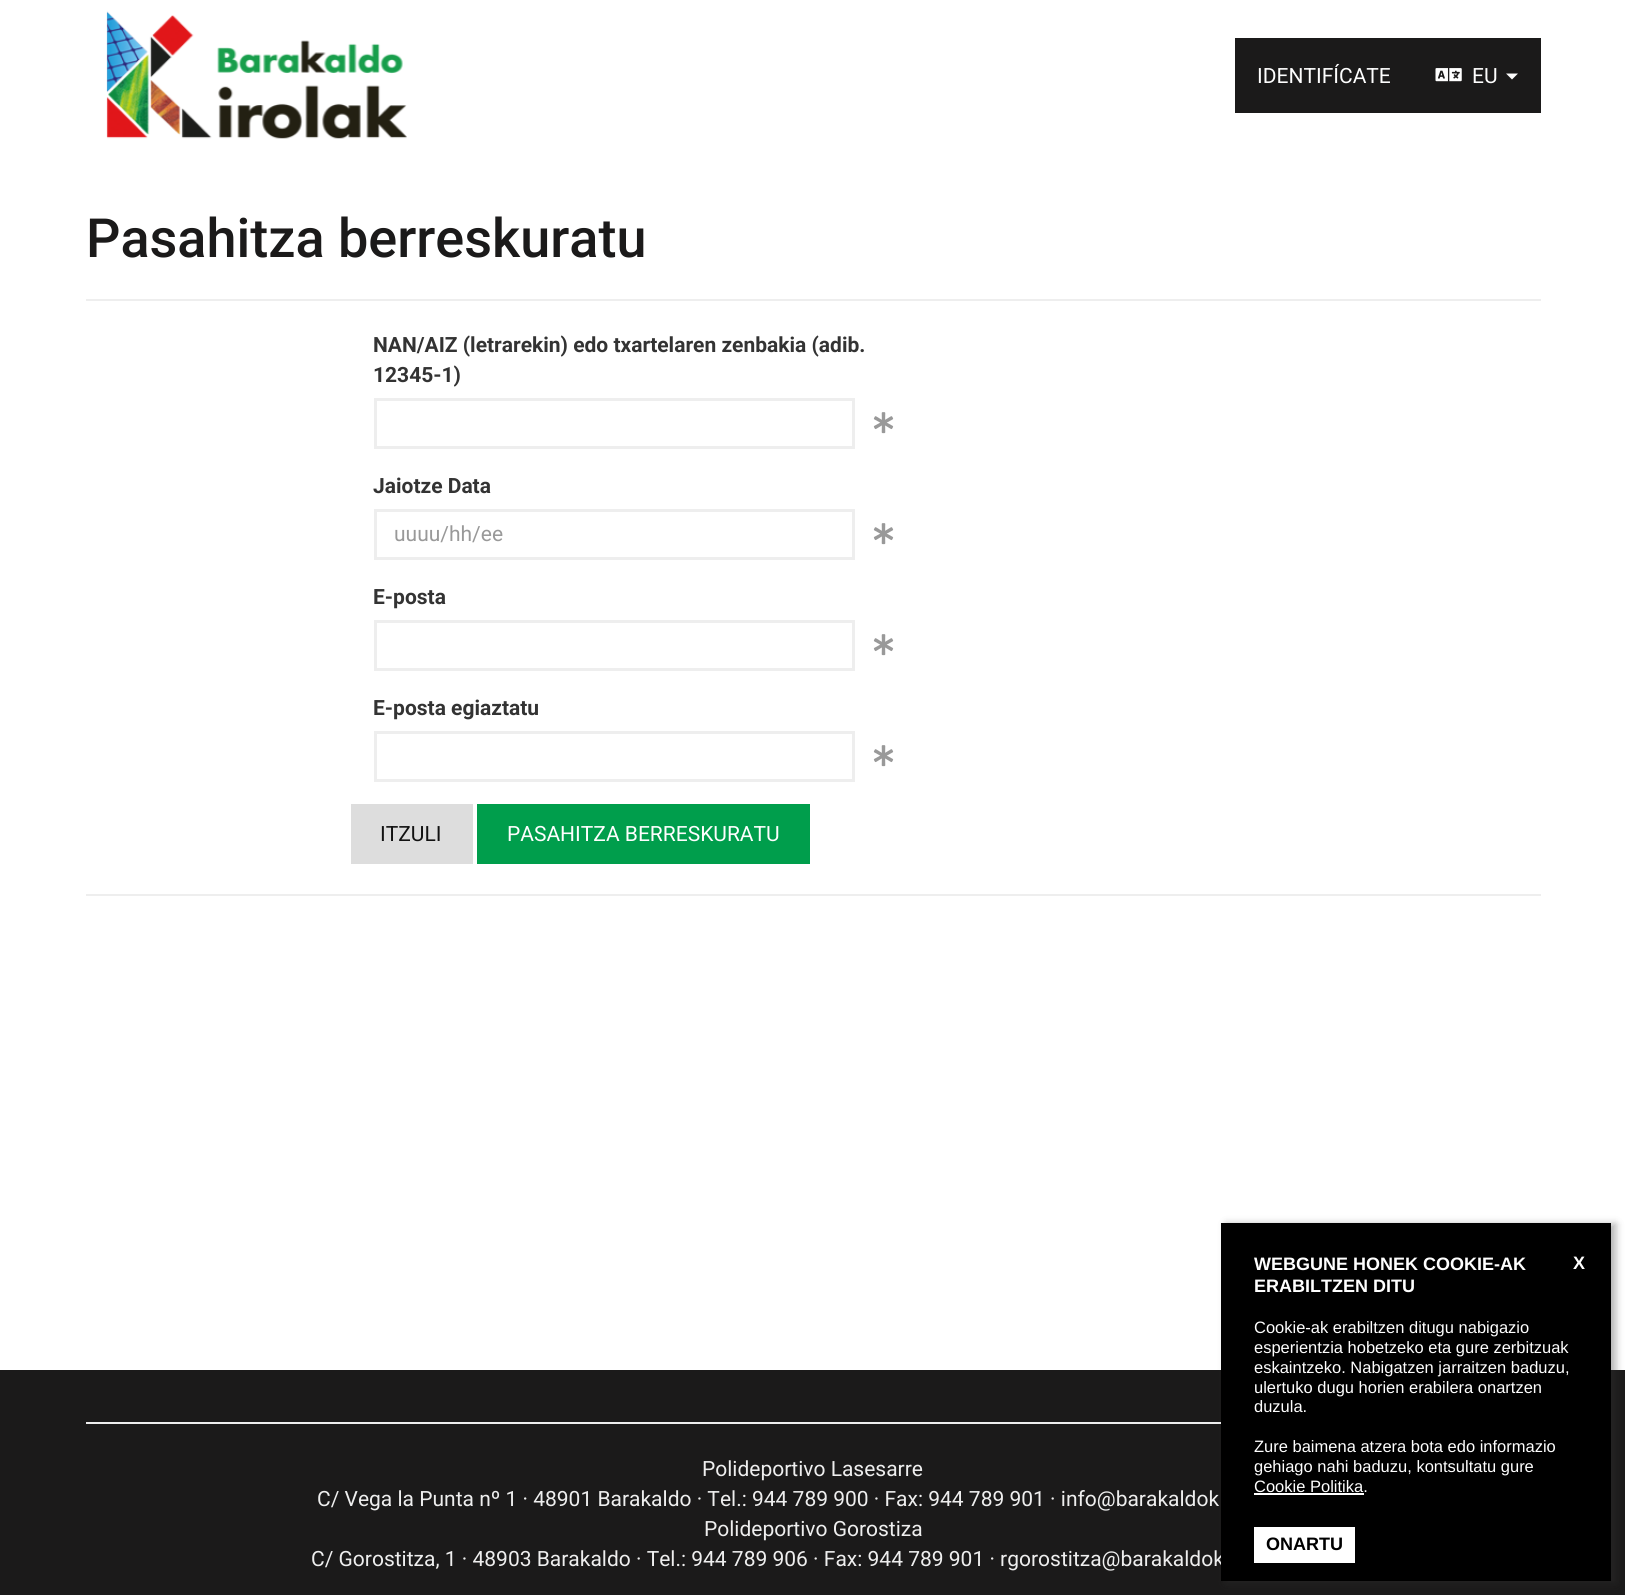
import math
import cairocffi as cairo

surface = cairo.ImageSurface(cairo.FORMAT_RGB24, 1625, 1595)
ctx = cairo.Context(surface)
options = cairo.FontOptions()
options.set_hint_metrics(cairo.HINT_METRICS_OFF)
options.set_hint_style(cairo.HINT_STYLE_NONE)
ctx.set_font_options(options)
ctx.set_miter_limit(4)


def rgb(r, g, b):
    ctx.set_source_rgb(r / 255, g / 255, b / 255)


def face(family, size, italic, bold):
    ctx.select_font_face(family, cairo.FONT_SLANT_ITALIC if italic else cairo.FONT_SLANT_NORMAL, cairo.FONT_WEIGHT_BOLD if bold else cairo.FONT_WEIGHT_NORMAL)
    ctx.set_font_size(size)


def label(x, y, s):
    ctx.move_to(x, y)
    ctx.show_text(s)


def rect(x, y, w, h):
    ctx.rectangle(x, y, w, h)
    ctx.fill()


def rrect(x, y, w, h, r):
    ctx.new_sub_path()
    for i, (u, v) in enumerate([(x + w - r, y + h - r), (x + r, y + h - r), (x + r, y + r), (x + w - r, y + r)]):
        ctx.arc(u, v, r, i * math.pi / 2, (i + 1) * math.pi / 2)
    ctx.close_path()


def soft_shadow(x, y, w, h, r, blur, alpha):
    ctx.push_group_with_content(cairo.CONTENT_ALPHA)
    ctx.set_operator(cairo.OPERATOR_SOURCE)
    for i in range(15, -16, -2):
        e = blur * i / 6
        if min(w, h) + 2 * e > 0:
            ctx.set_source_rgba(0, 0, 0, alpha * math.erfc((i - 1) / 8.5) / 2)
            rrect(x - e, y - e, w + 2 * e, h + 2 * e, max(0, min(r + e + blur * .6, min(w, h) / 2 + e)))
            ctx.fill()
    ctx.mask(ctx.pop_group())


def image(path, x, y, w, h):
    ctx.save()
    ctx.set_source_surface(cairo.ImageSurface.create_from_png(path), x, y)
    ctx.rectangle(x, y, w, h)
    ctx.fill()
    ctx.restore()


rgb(255, 255, 255)
ctx.paint()
image('image0.png', 106, 11, 301, 128)
rgb(27, 26, 26)
rect(1235, 38, 306, 75)
face('Roboto', 21, 0, 0)
rgb(254, 254, 254)
label(1257, 83, 'IDENTIFÍCATE')
image('image1.png', 1435, 68, 27, 14)
label(1472, 83, 'EU')
ctx.new_path()
ctx.move_to(1506, 73.5)
ctx.line_to(1518, 73.5)
ctx.line_to(1512, 79.5)
ctx.close_path()
ctx.fill()
rgb(238, 238, 238)
rect(86, 299, 1455, 2)
face('Roboto Medium', 54, 0, 0)
rgb(27, 26, 26)
label(86, 257, 'Pasahitza berreskuratu')
face('Roboto', 21, 0, 1)
rgb(51, 51, 51)
label(373, 352, 'NAN/AIZ (letrarekin) edo txartelaren zenbakia (adib.')
label(373, 382, '12345-1)')
ctx.rectangle(375.5, 399.5, 478, 48)
rgb(238, 238, 238)
ctx.set_line_width(3)
ctx.stroke()
image('image2.png', 873, 412, 21, 22)
rgb(51, 51, 51)
label(373, 493, 'Jaiotze Data')
ctx.rectangle(375.5, 510.5, 478, 48)
rgb(238, 238, 238)
ctx.stroke()
face('Roboto', 21, 0, 0)
rgb(153, 153, 153)
label(394, 541, 'uuuu/hh/ee')
image('image2.png', 873, 523, 21, 22)
face('Roboto', 21, 0, 1)
rgb(51, 51, 51)
label(373, 604, 'E-posta')
ctx.rectangle(375.5, 621.5, 478, 48)
rgb(238, 238, 238)
ctx.stroke()
image('image2.png', 873, 634, 21, 22)
rgb(51, 51, 51)
label(373, 715, 'E-posta egiaztatu')
ctx.rectangle(375.5, 732.5, 478, 48)
rgb(238, 238, 238)
ctx.stroke()
image('image2.png', 873, 745, 21, 22)
rgb(221, 221, 221)
rect(351, 804, 122, 60)
face('Roboto', 21, 0, 0)
rgb(17, 17, 17)
label(380, 841, 'ITZULI')
rgb(0, 158, 76)
rect(477, 804, 333, 60)
rgb(254, 254, 254)
label(507, 841, 'PASAHITZA BERRESKURATU')
rgb(238, 238, 238)
rect(86, 894, 1455, 2)
rgb(27, 26, 26)
rect(0, 1370, 1625, 225)
rgb(238, 238, 238)
rect(86, 1422, 1135, 2)
label(702, 1476, 'Polideportivo Lasesarre')
label(317, 1506, 'C/ Vega la Punta nº 1 · 48901 Barakaldo · Tel.: 944 789 900 · Fax: 944 789 901 · info@barakaldok')
label(704, 1536, 'Polideportivo Gorostiza')
label(311, 1566, 'C/ Gorostitza, 1 · 48903 Barakaldo · Tel.: 944 789 906 · Fax: 944 789 901 · rgorostitza@barakaldok')
rgb(50, 50, 50)
soft_shadow(1226, 1224, 390, 359, 0, 4, 0.37)
rgb(0, 0, 0)
rect(1221, 1223, 390, 358)
face('Liberation Sans', 18, 0, 1)
rgb(254, 254, 254)
label(1254, 1270, 'WEBGUNE HONEK COOKIE-AK')
label(1573, 1269, 'X')
label(1254, 1292, 'ERABILTZEN DITU')
face('Liberation Sans', 16.5, 0, 0)
label(1254, 1333, 'Cookie-ak erabiltzen ditugu nabigazio')
label(1254, 1353, 'esperientzia hobetzeko eta gure zerbitzuak')
label(1254, 1373, 'eskaintzeko. Nabigatzen jarraitzen baduzu,')
label(1254, 1393, 'ulertuko dugu horien erabilera onartzen')
label(1254, 1412, 'duzula.')
label(1254, 1452, 'Zure baimena atzera bota edo informazio')
label(1254, 1472, 'gehiago nahi baduzu, kontsultatu gure')
label(1254, 1492, 'Cookie Politika.')
rgb(255, 255, 255)
rect(1254, 1493, 110, 2)
rect(1254, 1527, 101, 36)
face('Liberation Sans', 18, 0, 1)
rgb(0, 0, 0)
label(1266, 1550, 'ONARTU')
surface.write_to_png('render.png')
